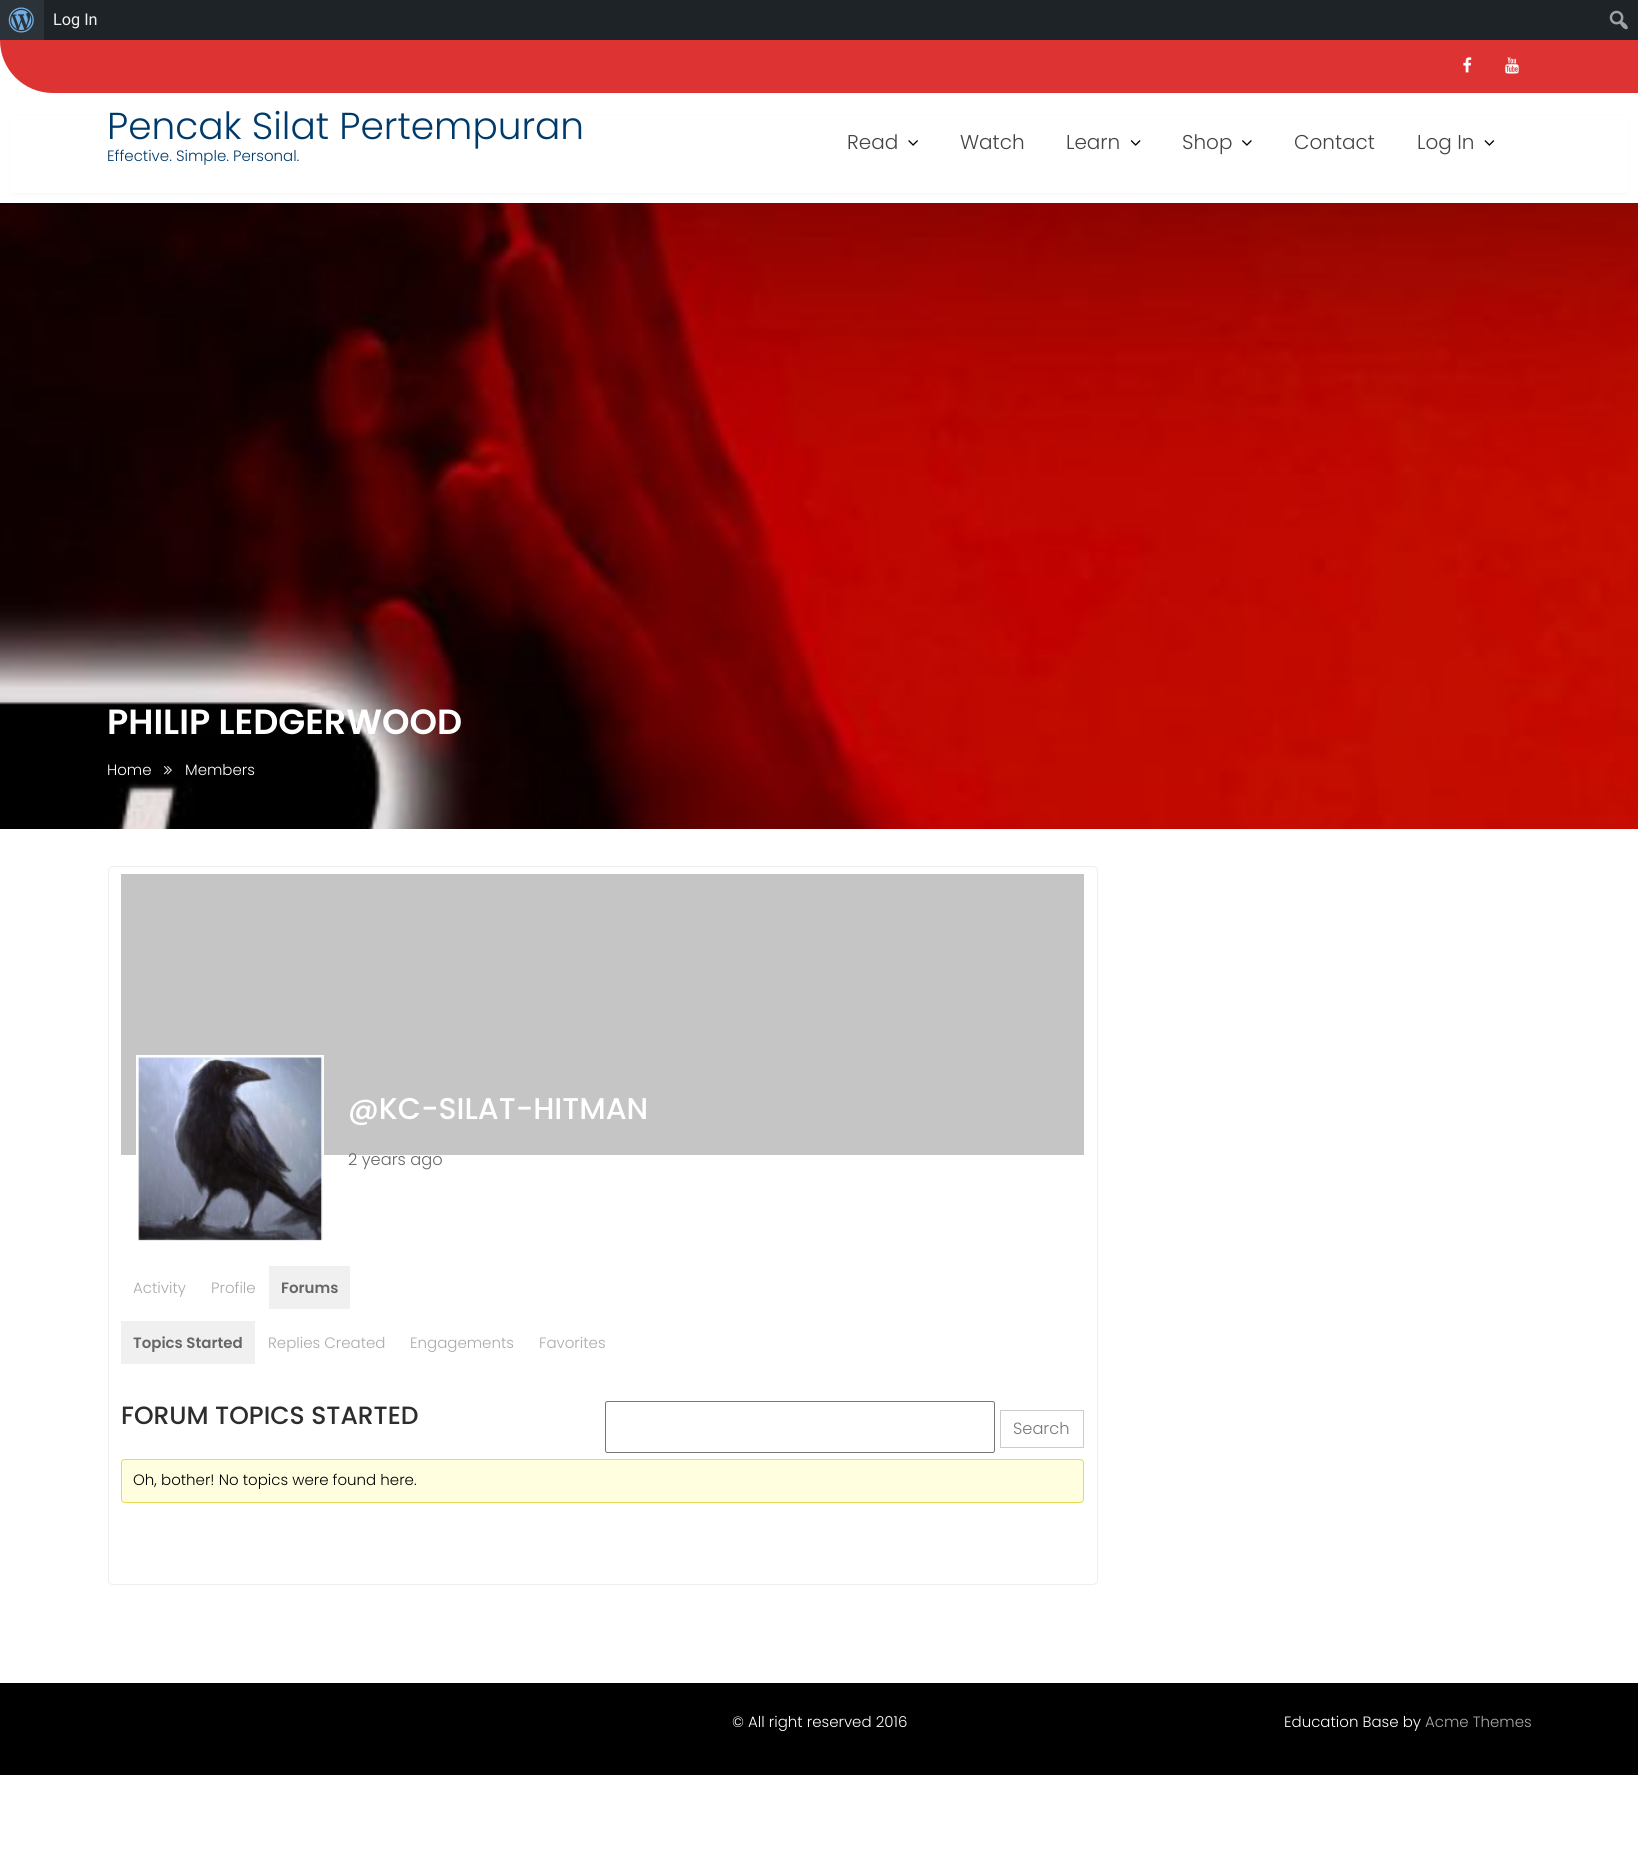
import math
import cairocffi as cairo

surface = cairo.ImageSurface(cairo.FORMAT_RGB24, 1638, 1872)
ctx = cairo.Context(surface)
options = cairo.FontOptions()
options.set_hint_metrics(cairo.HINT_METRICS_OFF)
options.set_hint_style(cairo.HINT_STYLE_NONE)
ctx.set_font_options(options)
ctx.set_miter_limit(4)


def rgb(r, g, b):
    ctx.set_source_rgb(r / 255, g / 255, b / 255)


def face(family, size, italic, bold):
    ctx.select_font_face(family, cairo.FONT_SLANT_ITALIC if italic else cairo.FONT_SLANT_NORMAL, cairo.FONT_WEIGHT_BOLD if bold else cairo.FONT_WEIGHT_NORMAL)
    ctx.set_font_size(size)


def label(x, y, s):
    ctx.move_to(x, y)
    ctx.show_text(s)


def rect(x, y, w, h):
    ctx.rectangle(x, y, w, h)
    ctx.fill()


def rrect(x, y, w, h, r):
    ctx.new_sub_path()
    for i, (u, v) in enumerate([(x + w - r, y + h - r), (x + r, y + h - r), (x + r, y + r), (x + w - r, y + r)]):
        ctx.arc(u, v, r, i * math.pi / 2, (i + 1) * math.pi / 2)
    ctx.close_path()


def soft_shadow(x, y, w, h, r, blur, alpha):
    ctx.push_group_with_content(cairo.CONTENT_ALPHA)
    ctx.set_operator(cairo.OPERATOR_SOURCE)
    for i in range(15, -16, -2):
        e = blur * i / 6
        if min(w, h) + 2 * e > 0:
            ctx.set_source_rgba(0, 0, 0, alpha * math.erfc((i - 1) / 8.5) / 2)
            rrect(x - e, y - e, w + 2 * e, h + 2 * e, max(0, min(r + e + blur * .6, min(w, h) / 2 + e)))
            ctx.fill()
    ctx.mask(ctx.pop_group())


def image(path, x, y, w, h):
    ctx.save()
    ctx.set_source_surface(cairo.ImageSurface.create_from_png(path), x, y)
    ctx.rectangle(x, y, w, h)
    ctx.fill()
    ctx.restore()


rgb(255, 255, 255)
ctx.paint()
rgb(29, 35, 39)
rect(44, 0, 1594, 40)
rgb(44, 51, 56)
rect(0, 0, 44, 40)
image('image0.png', 8, 7, 26, 26)
face('Roboto', 16.25, 0, 0)
rgb(240, 240, 241)
label(53, 25, 'Log In')
image('image1.png', 1609, 10, 19, 20)
rgb(221, 51, 51)
ctx.new_path()
ctx.move_to(0, 40)
ctx.line_to(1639, 40)
ctx.line_to(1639, 93)
ctx.line_to(53, 93)
ctx.curve_to(23.5, 93, 0, 69.5, 0, 40)
ctx.close_path()
ctx.fill()
image('image2.png', 1463, 57, 9, 16)
image('image3.png', 1505, 57, 14, 17)
rgb(238, 238, 238)
soft_shadow(13, 118, 1613, 75, 0, 2.5, 0.9)
rgb(255, 255, 255)
rect(11, 116, 1617, 77)
face('Poppins Light', 37.5, 0, 0)
rgb(0, 58, 106)
label(107, 139, 'Pencak Silat Pertempuran')
face('Poppins Light', 15, 0, 0)
label(107, 161, 'Effective. Simple. Personal.')
face('Poppins Light', 20, 0, 0)
rgb(68, 68, 68)
label(847, 149, 'Read')
image('image4.png', 908, 140, 10, 6)
label(960, 149, 'Watch')
label(1066, 149, 'Learn')
image('image5.png', 1130, 140, 11, 6)
label(1182, 149, 'Shop')
image('image6.png', 1242, 140, 10, 6)
label(1294, 149, 'Contact')
label(1417, 149, 'Log In')
image('image7.png', 1484, 140, 11, 6)
image('image8.png', 0, 203, 1638, 626)
face('Poppins SemiBold', 35, 0, 0)
rgb(255, 255, 255)
label(107, 734, 'PHILIP LEDGERWOOD')
face('Poppins Light', 15, 0, 0)
label(107, 775, 'Home')
image('image9.png', 163, 766, 9, 9)
label(185, 775, 'Members')
rrect(108.5, 866.5, 989, 718, 4.5)
rgb(238, 238, 238)
ctx.set_line_width(1)
ctx.stroke()
rgb(197, 197, 197)
rect(121, 874, 963, 281)
ctx.rectangle(137.5, 1056.5, 185, 185)
rgb(255, 255, 255)
ctx.set_line_width(3)
ctx.stroke()
image('image10.png', 138, 1057, 185, 184)
face('Poppins Medium', 30, 0, 0)
label(348, 1119, '@KC-SILAT-HITMAN')
face('Poppins Light', 16.25, 0, 0)
rgb(102, 102, 102)
label(348, 1165, '2 years ago')
face('Poppins Light', 15, 0, 0)
rgb(170, 170, 170)
label(133, 1293, 'Activity')
label(211, 1293, 'Profile')
rgb(240, 240, 240)
rect(269, 1266, 81, 43)
face('Poppins SemiBold', 15, 0, 0)
rgb(102, 102, 102)
label(281, 1293, 'Forums')
rgb(240, 240, 240)
rect(121, 1321, 134, 43)
rgb(102, 102, 102)
label(133, 1348, 'Topics Started')
face('Poppins Light', 15, 0, 0)
rgb(170, 170, 170)
label(268, 1348, 'Replies Created')
label(410, 1348, 'Engagements')
label(539, 1348, 'Favorites')
face('Poppins Medium', 25, 0, 0)
rgb(45, 45, 45)
label(121, 1424, 'FORUM TOPICS STARTED')
rrect(605.5, 1401.5, 389, 51, 2)
rgb(118, 118, 118)
ctx.set_line_width(1)
ctx.stroke()
ctx.rectangle(1000.5, 1410.5, 83, 37)
rgb(204, 204, 204)
ctx.stroke()
face('Poppins Light', 16.25, 0, 0)
rgb(118, 118, 118)
label(1013, 1434, 'Search')
rgb(255, 255, 224)
rrect(121.5, 1459.5, 962, 43, 3.5)
ctx.fill_preserve()
rgb(230, 219, 85)
ctx.stroke()
face('Poppins Light', 15, 0, 0)
rgb(0, 0, 0)
label(133, 1485, 'Oh, bother! No topics were found here.')
rect(0, 1683, 1638, 92)
rgb(255, 255, 255)
label(732, 1727, '© All right reserved 2016')
label(1284, 1727, 'Education Base by')
rgb(170, 170, 170)
label(1425, 1727, 'Acme Themes')
surface.write_to_png('render.png')
